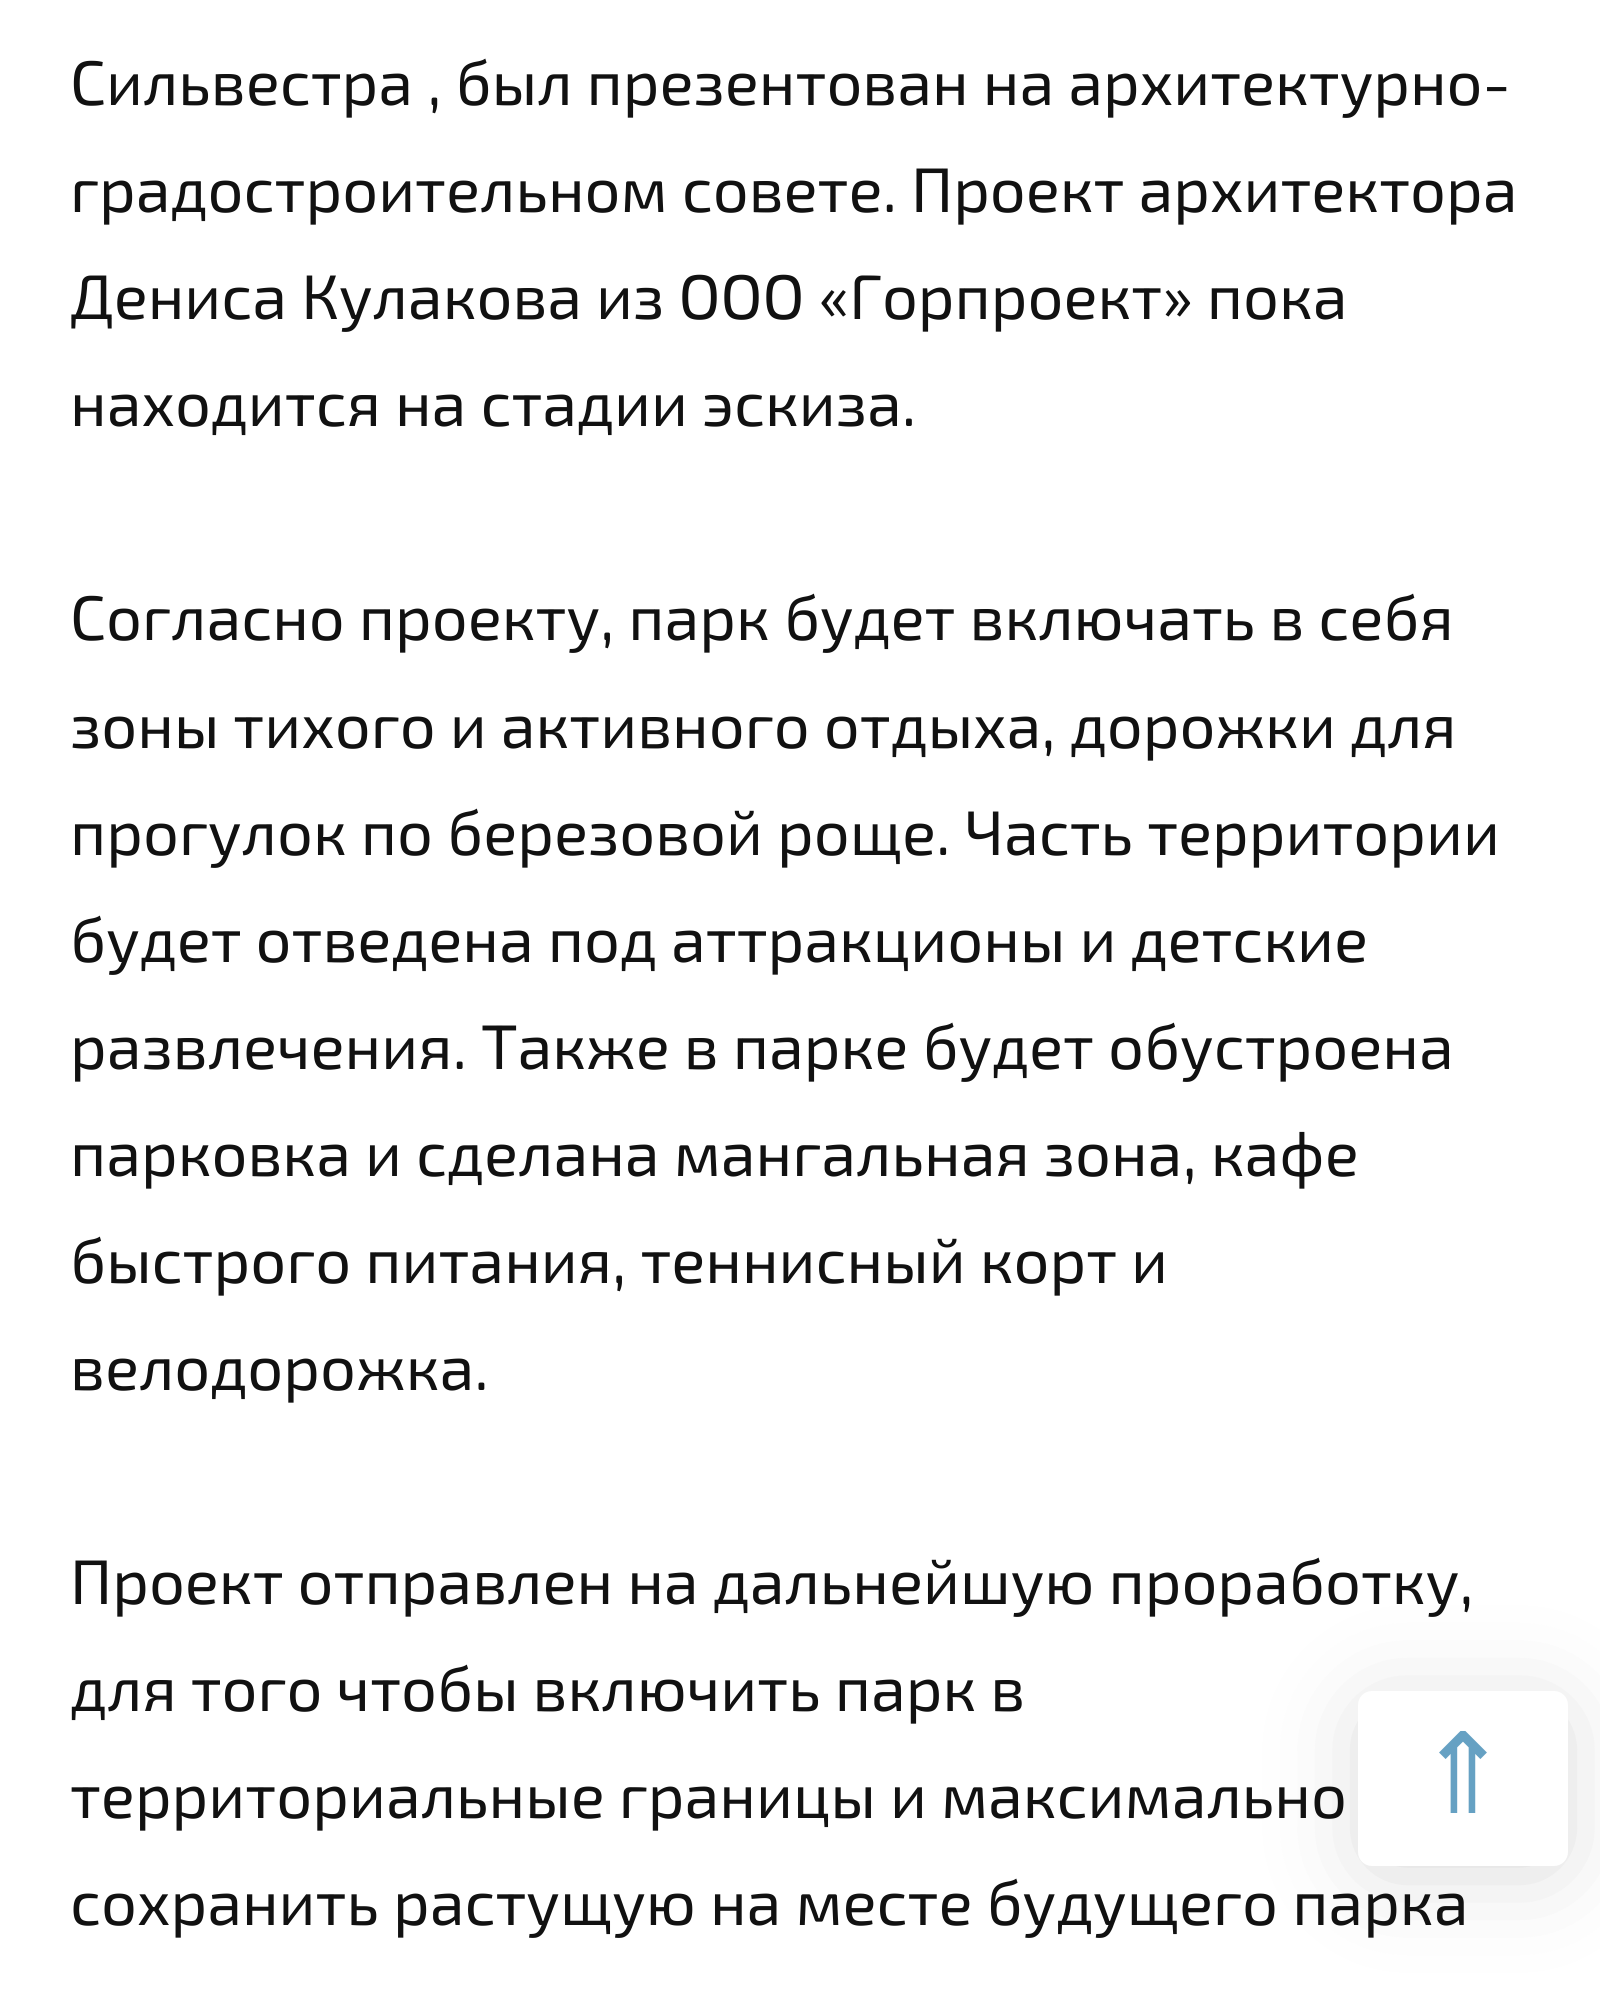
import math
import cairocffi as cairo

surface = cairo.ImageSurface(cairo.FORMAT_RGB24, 1600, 2003)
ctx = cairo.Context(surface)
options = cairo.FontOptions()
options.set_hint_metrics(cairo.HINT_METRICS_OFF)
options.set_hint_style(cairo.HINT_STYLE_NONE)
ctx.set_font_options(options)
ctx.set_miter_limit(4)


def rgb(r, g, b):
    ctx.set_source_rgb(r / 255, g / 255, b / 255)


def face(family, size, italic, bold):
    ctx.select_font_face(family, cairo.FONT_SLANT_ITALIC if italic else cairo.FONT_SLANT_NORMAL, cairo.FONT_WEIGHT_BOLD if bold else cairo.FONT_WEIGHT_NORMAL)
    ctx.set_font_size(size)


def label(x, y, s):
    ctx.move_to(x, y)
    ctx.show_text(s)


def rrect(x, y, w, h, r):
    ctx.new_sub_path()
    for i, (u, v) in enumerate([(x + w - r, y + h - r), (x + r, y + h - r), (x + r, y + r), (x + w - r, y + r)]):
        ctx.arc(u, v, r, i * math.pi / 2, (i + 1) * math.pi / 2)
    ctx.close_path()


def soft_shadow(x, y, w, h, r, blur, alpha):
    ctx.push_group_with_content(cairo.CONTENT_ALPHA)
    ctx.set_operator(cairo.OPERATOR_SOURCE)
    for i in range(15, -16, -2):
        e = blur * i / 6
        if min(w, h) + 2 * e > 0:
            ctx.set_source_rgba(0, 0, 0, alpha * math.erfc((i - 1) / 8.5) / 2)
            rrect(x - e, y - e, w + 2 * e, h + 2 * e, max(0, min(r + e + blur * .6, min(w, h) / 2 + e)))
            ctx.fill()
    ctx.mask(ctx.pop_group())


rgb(255, 255, 255)
ctx.paint()
face('Exo 2', 63, 0, 0)
rgb(17, 17, 17)
label(70, 105, 'Сильвестра , был презентован на архитектурно-')
label(70, 212, 'градостроительном совете. Проект архитектора')
label(70, 319, 'Дениса Кулакова из ООО «Горпроект» пока')
label(70, 426, 'находится на стадии эскиза.')
label(70, 640, 'Согласно проекту, парк будет включать в себя')
label(70, 748, 'зоны тихого и активного отдыха, дорожки для')
label(70, 855, 'прогулок по березовой роще. Часть территории')
label(70, 962, 'будет отведена под аттракционы и детские')
label(70, 1069, 'развлечения. Также в парке будет обустроена')
label(70, 1176, 'парковка и сделана мангальная зона, кафе')
label(70, 1283, 'быстрого питания, теннисный корт и')
label(70, 1390, 'велодорожка.')
label(70, 1604, 'Проект отправлен на дальнейшую проработку,')
label(70, 1711, 'для того чтобы включить парк в')
label(70, 1818, 'территориальные границы и максимально')
label(70, 1925, 'сохранить растущую на месте будущего парка')
rgb(0, 0, 0)
soft_shadow(1376, 1719, 175, 140, 0, 52.5, 0.18)
rgb(255, 255, 255)
rrect(1358, 1691, 210, 175, 14)
ctx.fill()
face('DejaVu Sans', 112, 0, 0)
rgb(102, 161, 195)
label(1416, 1813, '⇑')
surface.write_to_png('render.png')
